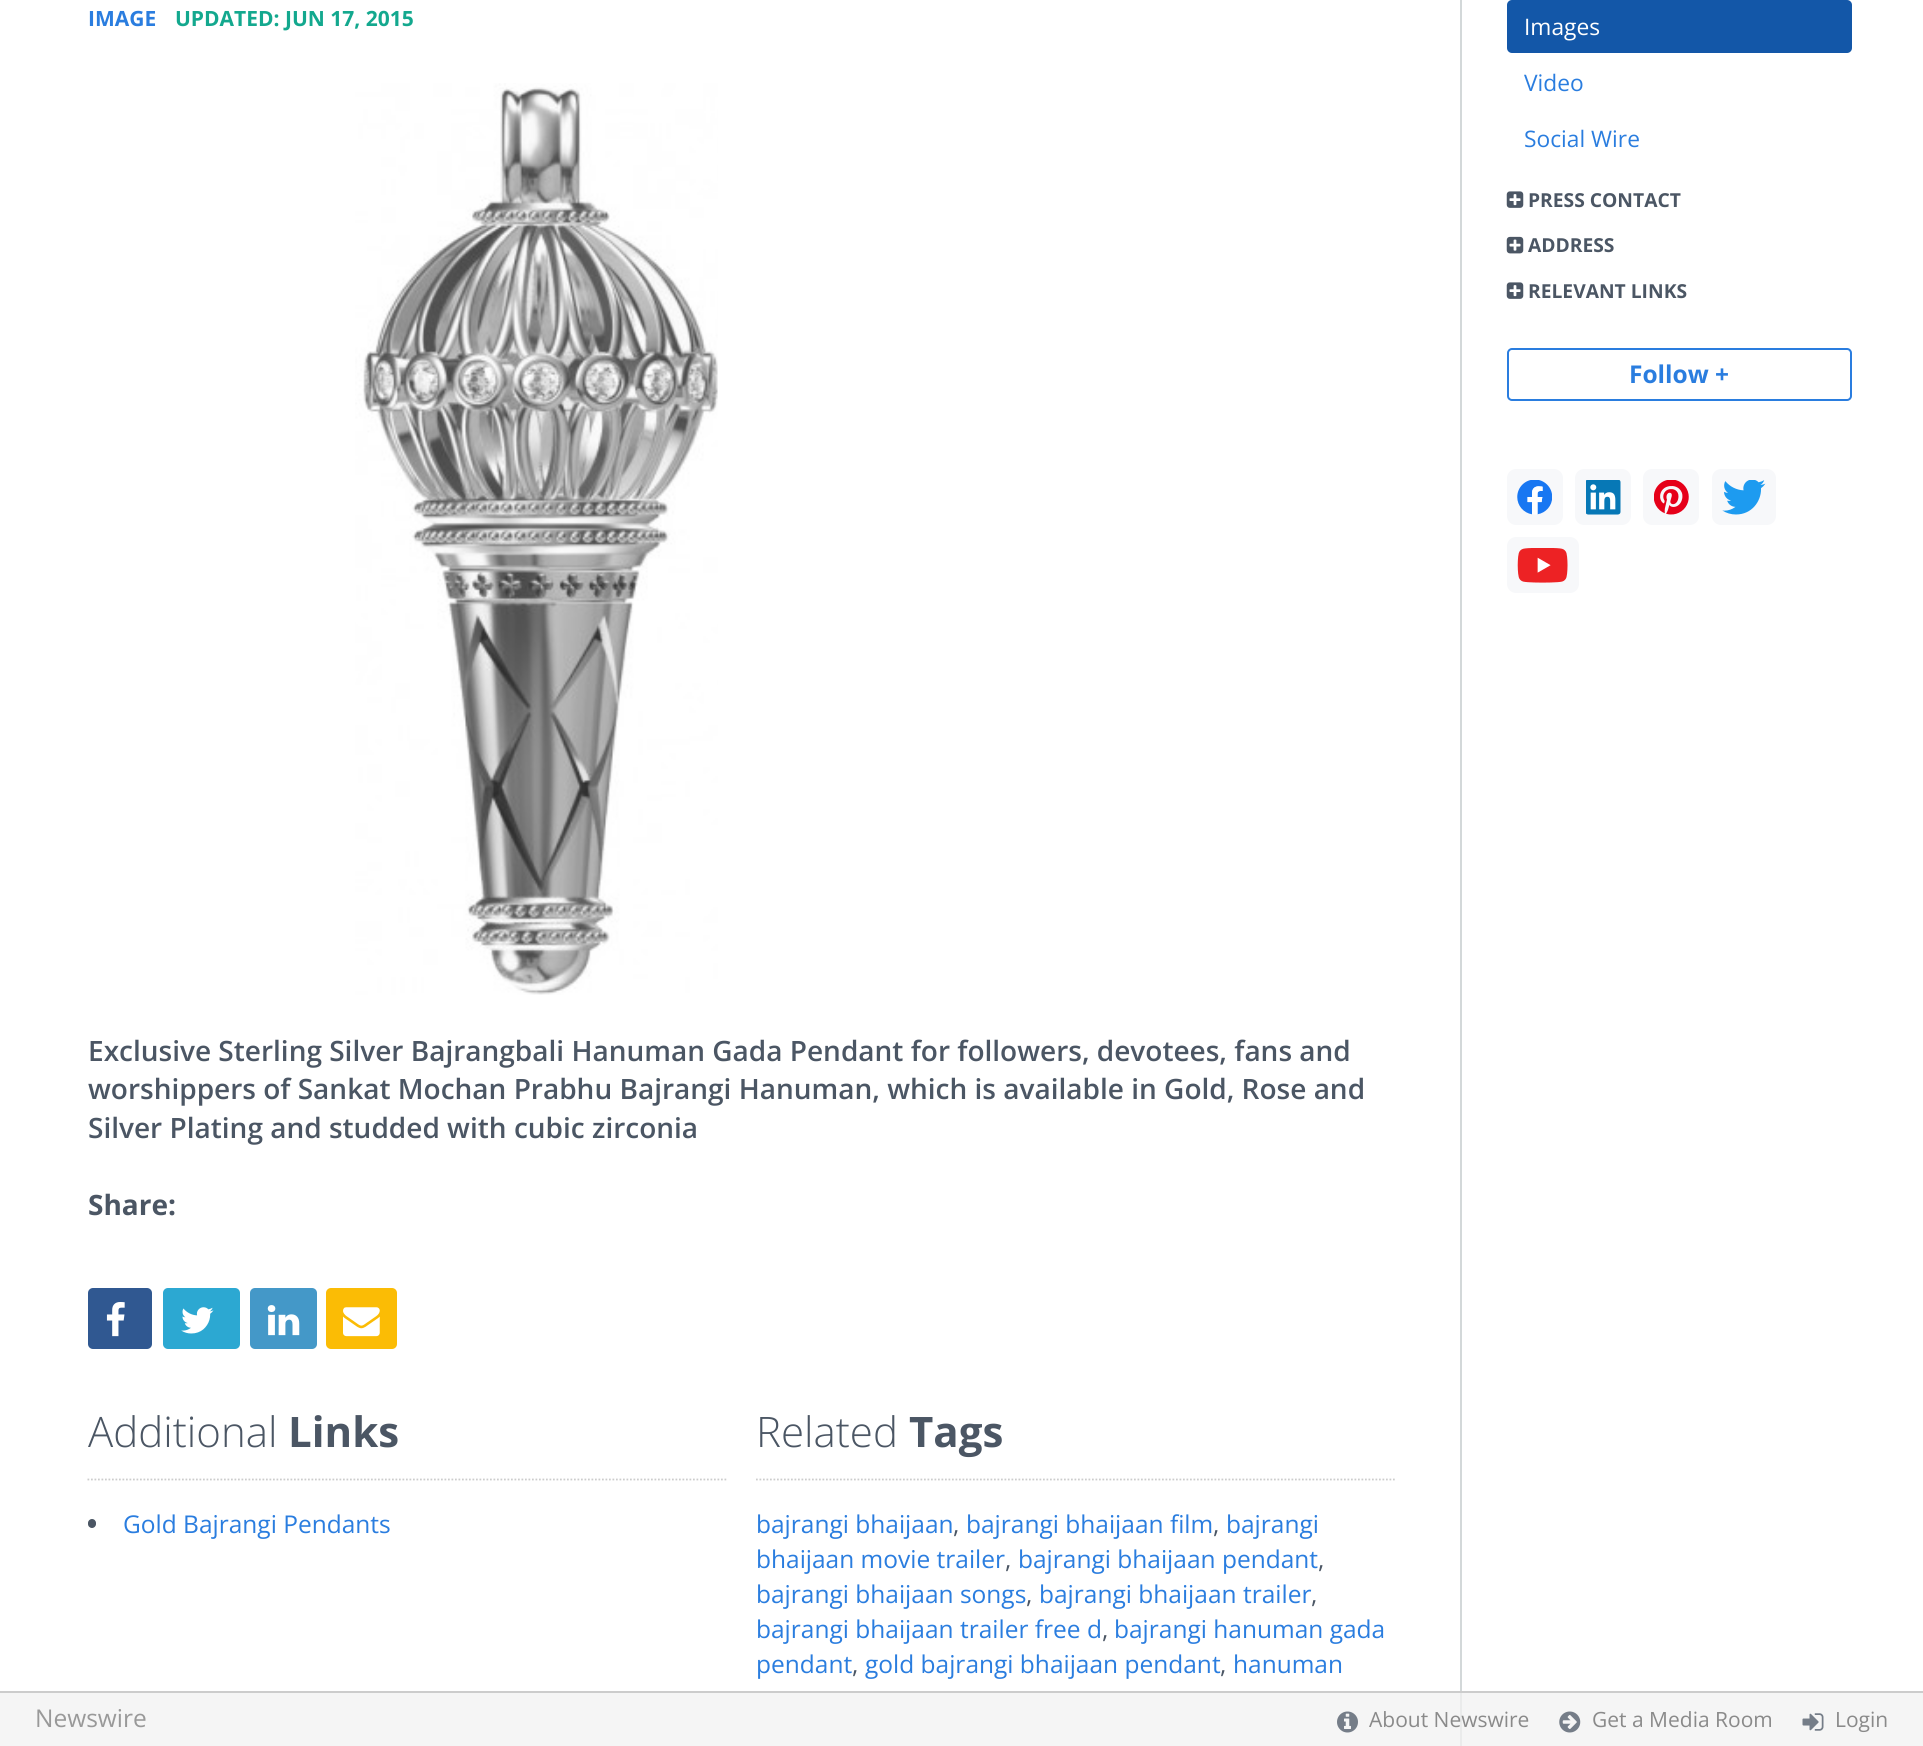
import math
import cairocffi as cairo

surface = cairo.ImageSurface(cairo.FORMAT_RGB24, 1923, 1746)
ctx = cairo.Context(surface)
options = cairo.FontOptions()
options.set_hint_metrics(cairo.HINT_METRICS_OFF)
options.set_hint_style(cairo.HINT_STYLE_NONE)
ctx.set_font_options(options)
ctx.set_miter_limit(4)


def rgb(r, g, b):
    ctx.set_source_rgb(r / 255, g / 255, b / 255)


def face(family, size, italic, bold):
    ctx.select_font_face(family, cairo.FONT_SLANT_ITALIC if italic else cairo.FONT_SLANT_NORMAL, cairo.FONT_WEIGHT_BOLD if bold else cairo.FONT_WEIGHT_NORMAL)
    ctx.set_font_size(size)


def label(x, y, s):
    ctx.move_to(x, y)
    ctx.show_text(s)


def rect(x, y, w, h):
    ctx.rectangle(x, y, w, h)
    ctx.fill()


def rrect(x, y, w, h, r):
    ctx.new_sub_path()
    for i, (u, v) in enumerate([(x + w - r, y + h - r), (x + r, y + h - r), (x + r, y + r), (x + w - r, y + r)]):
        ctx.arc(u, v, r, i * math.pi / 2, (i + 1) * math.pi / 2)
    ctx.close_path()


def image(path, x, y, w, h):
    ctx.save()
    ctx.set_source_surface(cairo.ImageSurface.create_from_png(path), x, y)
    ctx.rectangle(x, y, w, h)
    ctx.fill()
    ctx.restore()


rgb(255, 255, 255)
ctx.paint()
rgb(211, 216, 217)
rect(1460, 0, 2, 1746)
face('Open Sans', 21, 0, 1)
rgb(42, 125, 223)
label(88, 26, 'IMAGE')
rgb(19, 168, 142)
label(175, 26, 'UPDATED: JUN 17, 2015')
image('image0.png', 355, 83, 363, 912)
face('Open Sans SemiBold', 28, 0, 0)
rgb(75, 86, 100)
label(88, 1061, 'Exclusive Sterling Silver Bajrangbali Hanuman Gada Pendant for followers, devotees, fans and')
label(88, 1099, 'worshippers of Sankat Mochan Prabhu Bajrangi Hanuman, which is available in Gold, Rose and')
label(88, 1138, 'Silver Plating and studded with cubic zirconia')
face('Open Sans', 28, 0, 1)
label(88, 1215, 'Share:')
rgb(48, 88, 145)
rrect(88, 1288, 64, 61, 5)
ctx.fill()
image('image1.png', 106, 1302, 19, 35)
rgb(44, 168, 210)
rrect(163, 1288, 77, 61, 5)
ctx.fill()
image('image2.png', 181, 1307, 33, 27)
rgb(68, 152, 200)
rrect(250, 1288, 67, 61, 5)
ctx.fill()
image('image3.png', 267, 1305, 33, 31)
rgb(251, 188, 5)
rrect(326, 1288, 71, 61, 5)
ctx.fill()
image('image4.png', 343, 1307, 37, 30)
ctx.new_path()
ctx.move_to(87.5, 1479.5)
ctx.line_to(728, 1479.5)
rgb(204, 204, 204)
ctx.set_line_width(1.8)
ctx.set_dash([1.75, 1.75])
ctx.stroke()
face('Open Sans Light', 42, 0, 0)
rgb(75, 86, 100)
label(88, 1447, 'Additional')
face('Open Sans', 42, 0, 1)
label(288, 1447, 'Links')
rrect(88, 1519, 8, 9, 4)
ctx.fill()
face('Open Sans', 24.5, 0, 0)
rgb(42, 125, 223)
label(123, 1533, 'Gold Bajrangi Pendants')
ctx.new_path()
ctx.move_to(756, 1479.5)
ctx.line_to(1396.5, 1479.5)
rgb(204, 204, 204)
ctx.stroke()
face('Open Sans Light', 42, 0, 0)
rgb(75, 86, 100)
label(756, 1447, 'Related')
face('Open Sans', 42, 0, 1)
label(909, 1447, 'Tags')
face('Open Sans', 24.5, 0, 0)
rgb(42, 125, 223)
label(756, 1533, 'bajrangi bhaijaan')
rgb(75, 86, 100)
label(953, 1533, ',')
rgb(42, 125, 223)
label(966, 1533, 'bajrangi bhaijaan film')
rgb(75, 86, 100)
label(1213, 1533, ',')
rgb(42, 125, 223)
label(1226, 1533, 'bajrangi')
label(756, 1568, 'bhaijaan movie trailer')
rgb(75, 86, 100)
label(1005, 1568, ',')
rgb(42, 125, 223)
label(1018, 1568, 'bajrangi bhaijaan pendant')
rgb(75, 86, 100)
label(1318, 1568, ',')
rgb(42, 125, 223)
label(756, 1603, 'bajrangi bhaijaan songs')
rgb(75, 86, 100)
label(1026, 1603, ',')
rgb(42, 125, 223)
label(1039, 1603, 'bajrangi bhaijaan trailer')
rgb(75, 86, 100)
label(1311, 1603, ',')
rgb(42, 125, 223)
label(756, 1638, 'bajrangi bhaijaan trailer free d')
rgb(75, 86, 100)
label(1102, 1638, ',')
rgb(42, 125, 223)
label(1114, 1638, 'bajrangi hanuman gada')
label(756, 1673, 'pendant')
rgb(75, 86, 100)
label(852, 1673, ',')
rgb(42, 125, 223)
label(865, 1673, 'gold bajrangi bhaijaan pendant')
rgb(75, 86, 100)
label(1220, 1673, ',')
rgb(42, 125, 223)
label(1233, 1673, 'hanuman')
rgb(19, 87, 168)
rrect(1507, 0, 345, 53, 5)
ctx.fill()
face('Open Sans', 22.75, 0, 0)
rgb(255, 255, 255)
label(1524, 35, 'Images')
rgb(42, 125, 223)
label(1524, 91, 'Video')
label(1524, 147, 'Social Wire')
image('image5.png', 1506, 191, 18, 17)
face('Open Sans', 19.25, 0, 1)
rgb(75, 86, 100)
label(1528, 207, 'PRESS CONTACT')
image('image6.png', 1506, 236, 18, 18)
label(1528, 252, 'ADDRESS')
image('image5.png', 1506, 282, 18, 17)
label(1528, 298, 'RELEVANT LINKS')
rrect(1508, 349, 343, 51, 4)
rgb(42, 125, 223)
ctx.set_line_width(2)
ctx.set_dash([])
ctx.stroke()
face('Open Sans', 24.5, 0, 1)
label(1629, 383, 'Follow +')
rgb(247, 248, 250)
rrect(1507, 469, 56, 56, 9)
ctx.fill()
image('image7.png', 1517, 480, 35, 35)
rrect(1575, 469, 56, 56, 9)
ctx.fill()
image('image8.png', 1586, 480, 35, 35)
rrect(1643, 469, 56, 56, 9)
ctx.fill()
image('image9.png', 1654, 480, 35, 35)
rrect(1712, 469, 64, 56, 9)
ctx.fill()
image('image10.png', 1722, 480, 44, 35)
rrect(1507, 537, 72, 56, 9)
ctx.fill()
image('image11.png', 1517, 548, 51, 35)
ctx.set_source_rgba(0.945, 0.945, 0.945, 0.75)
rect(0, 1693, 1923, 53)
rgb(204, 204, 204)
rect(0, 1691, 1923, 2)
face('Open Sans', 24.5, 0, 0)
rgb(153, 153, 153)
label(35, 1727, 'Newswire')
image('image12.png', 1337, 1711, 21, 22)
face('Open Sans', 21, 0, 0)
rgb(138, 138, 138)
label(1369, 1727, 'About Newswire')
image('image13.png', 1559, 1711, 22, 22)
label(1592, 1727, 'Get a Media Room')
image('image14.png', 1802, 1713, 22, 18)
label(1835, 1727, 'Login')
surface.write_to_png('render.png')
